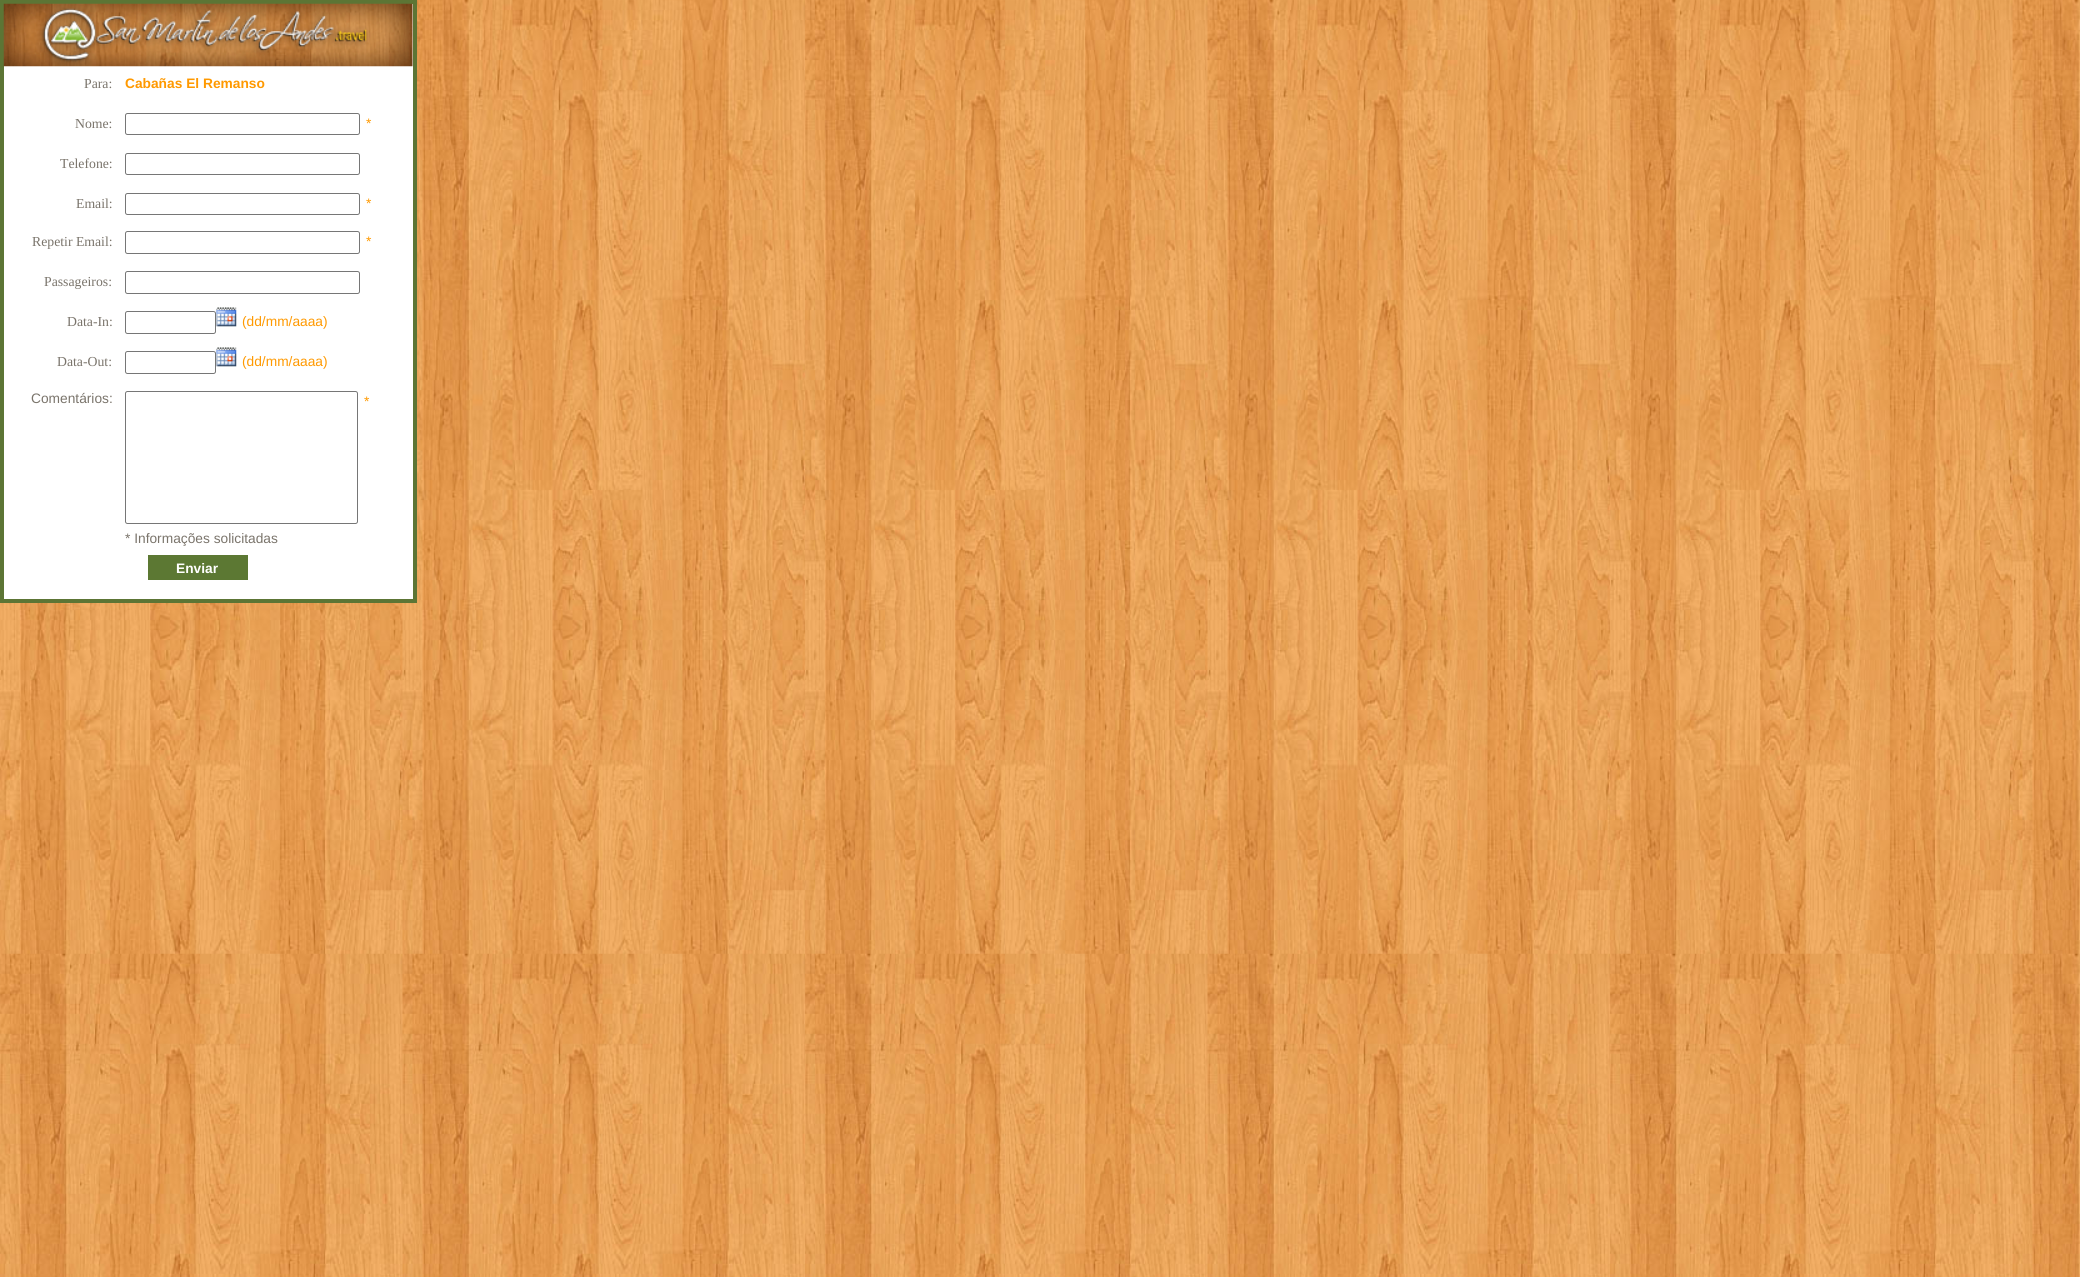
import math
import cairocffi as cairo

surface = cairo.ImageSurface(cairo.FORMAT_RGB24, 2080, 1277)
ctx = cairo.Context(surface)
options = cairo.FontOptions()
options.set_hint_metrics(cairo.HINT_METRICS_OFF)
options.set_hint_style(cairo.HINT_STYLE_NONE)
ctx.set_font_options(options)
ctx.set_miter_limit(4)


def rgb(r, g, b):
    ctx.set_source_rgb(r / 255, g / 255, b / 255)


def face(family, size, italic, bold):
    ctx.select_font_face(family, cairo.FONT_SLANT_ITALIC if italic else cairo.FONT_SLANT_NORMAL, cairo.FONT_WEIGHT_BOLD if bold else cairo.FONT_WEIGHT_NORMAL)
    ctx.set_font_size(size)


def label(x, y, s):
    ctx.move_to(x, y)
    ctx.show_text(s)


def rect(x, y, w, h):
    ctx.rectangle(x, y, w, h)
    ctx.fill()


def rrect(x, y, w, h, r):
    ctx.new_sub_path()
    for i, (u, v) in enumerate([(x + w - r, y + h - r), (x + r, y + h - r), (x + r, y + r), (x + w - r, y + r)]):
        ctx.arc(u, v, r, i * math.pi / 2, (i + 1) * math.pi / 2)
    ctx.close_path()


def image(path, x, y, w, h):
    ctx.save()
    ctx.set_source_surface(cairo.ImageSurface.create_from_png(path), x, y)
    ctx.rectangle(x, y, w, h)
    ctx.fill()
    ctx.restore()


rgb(255, 255, 255)
ctx.paint()
image('image0.png', 0, 0, 2080, 1277)
rgb(255, 255, 255)
rect(4, 4, 409, 595)
rgb(92, 117, 53)
rect(0, 0, 416, 4)
rect(413, 0, 4, 603)
rect(0, 599, 416, 4)
rect(0, 0, 4, 603)
image('image1.png', 3, 3, 410, 64)
face('Liberation Serif', 13.75, 0, 0)
rgb(122, 116, 107)
label(84, 88, 'Para:')
face('Liberation Sans', 13.75, 0, 1)
rgb(255, 153, 0)
label(125, 88, 'Cabañas El Remanso')
face('Liberation Serif', 13.75, 0, 0)
rgb(122, 116, 107)
label(75, 128, 'Nome:')
rrect(125.5, 113.5, 234, 21, 2)
rgb(118, 118, 118)
ctx.set_line_width(1)
ctx.stroke()
face('Liberation Sans', 13.75, 0, 0)
rgb(255, 153, 0)
label(366, 128, '*')
face('Liberation Serif', 13.75, 0, 0)
rgb(122, 116, 107)
label(60, 168, 'Telefone:')
rrect(125.5, 153.5, 234, 21, 2)
rgb(118, 118, 118)
ctx.stroke()
rgb(122, 116, 107)
label(76, 208, 'Email:')
rrect(125.5, 193.5, 234, 21, 2)
rgb(118, 118, 118)
ctx.stroke()
face('Liberation Sans', 13.75, 0, 0)
rgb(255, 153, 0)
label(366, 208, '*')
face('Liberation Serif', 13.75, 0, 0)
rgb(122, 116, 107)
label(32, 246, 'Repetir Email:')
rrect(125.5, 231.5, 234, 22, 2)
rgb(118, 118, 118)
ctx.stroke()
face('Liberation Sans', 13.75, 0, 0)
rgb(255, 153, 0)
label(366, 246, '*')
face('Liberation Serif', 13.75, 0, 0)
rgb(122, 116, 107)
label(44, 286, 'Passageiros:')
rrect(125.5, 271.5, 234, 22, 2)
rgb(118, 118, 118)
ctx.stroke()
rgb(122, 116, 107)
label(67, 326, 'Data-In:')
rrect(125.5, 311.5, 90, 22, 2)
rgb(118, 118, 118)
ctx.stroke()
image('image2.png', 216, 307, 21, 20)
face('Liberation Sans', 13.75, 0, 0)
rgb(255, 153, 0)
label(242, 326, '(dd/mm/aaaa)')
face('Liberation Serif', 13.75, 0, 0)
rgb(122, 116, 107)
label(57, 366, 'Data-Out:')
rrect(125.5, 351.5, 90, 22, 2)
rgb(118, 118, 118)
ctx.stroke()
image('image2.png', 216, 347, 21, 20)
face('Liberation Sans', 13.75, 0, 0)
rgb(255, 153, 0)
label(242, 366, '(dd/mm/aaaa)')
rgb(122, 116, 107)
label(31, 403, 'Comentários:')
rrect(125.5, 391.5, 232, 132, 2)
rgb(118, 118, 118)
ctx.stroke()
rgb(255, 153, 0)
label(364, 406, '*')
rgb(122, 116, 107)
label(125, 543, '* Informações solicitadas')
rgb(92, 120, 51)
rect(148, 555, 100, 25)
face('Liberation Sans', 13.75, 0, 1)
rgb(255, 255, 255)
label(176, 573, 'Enviar')
surface.write_to_png('render.png')
